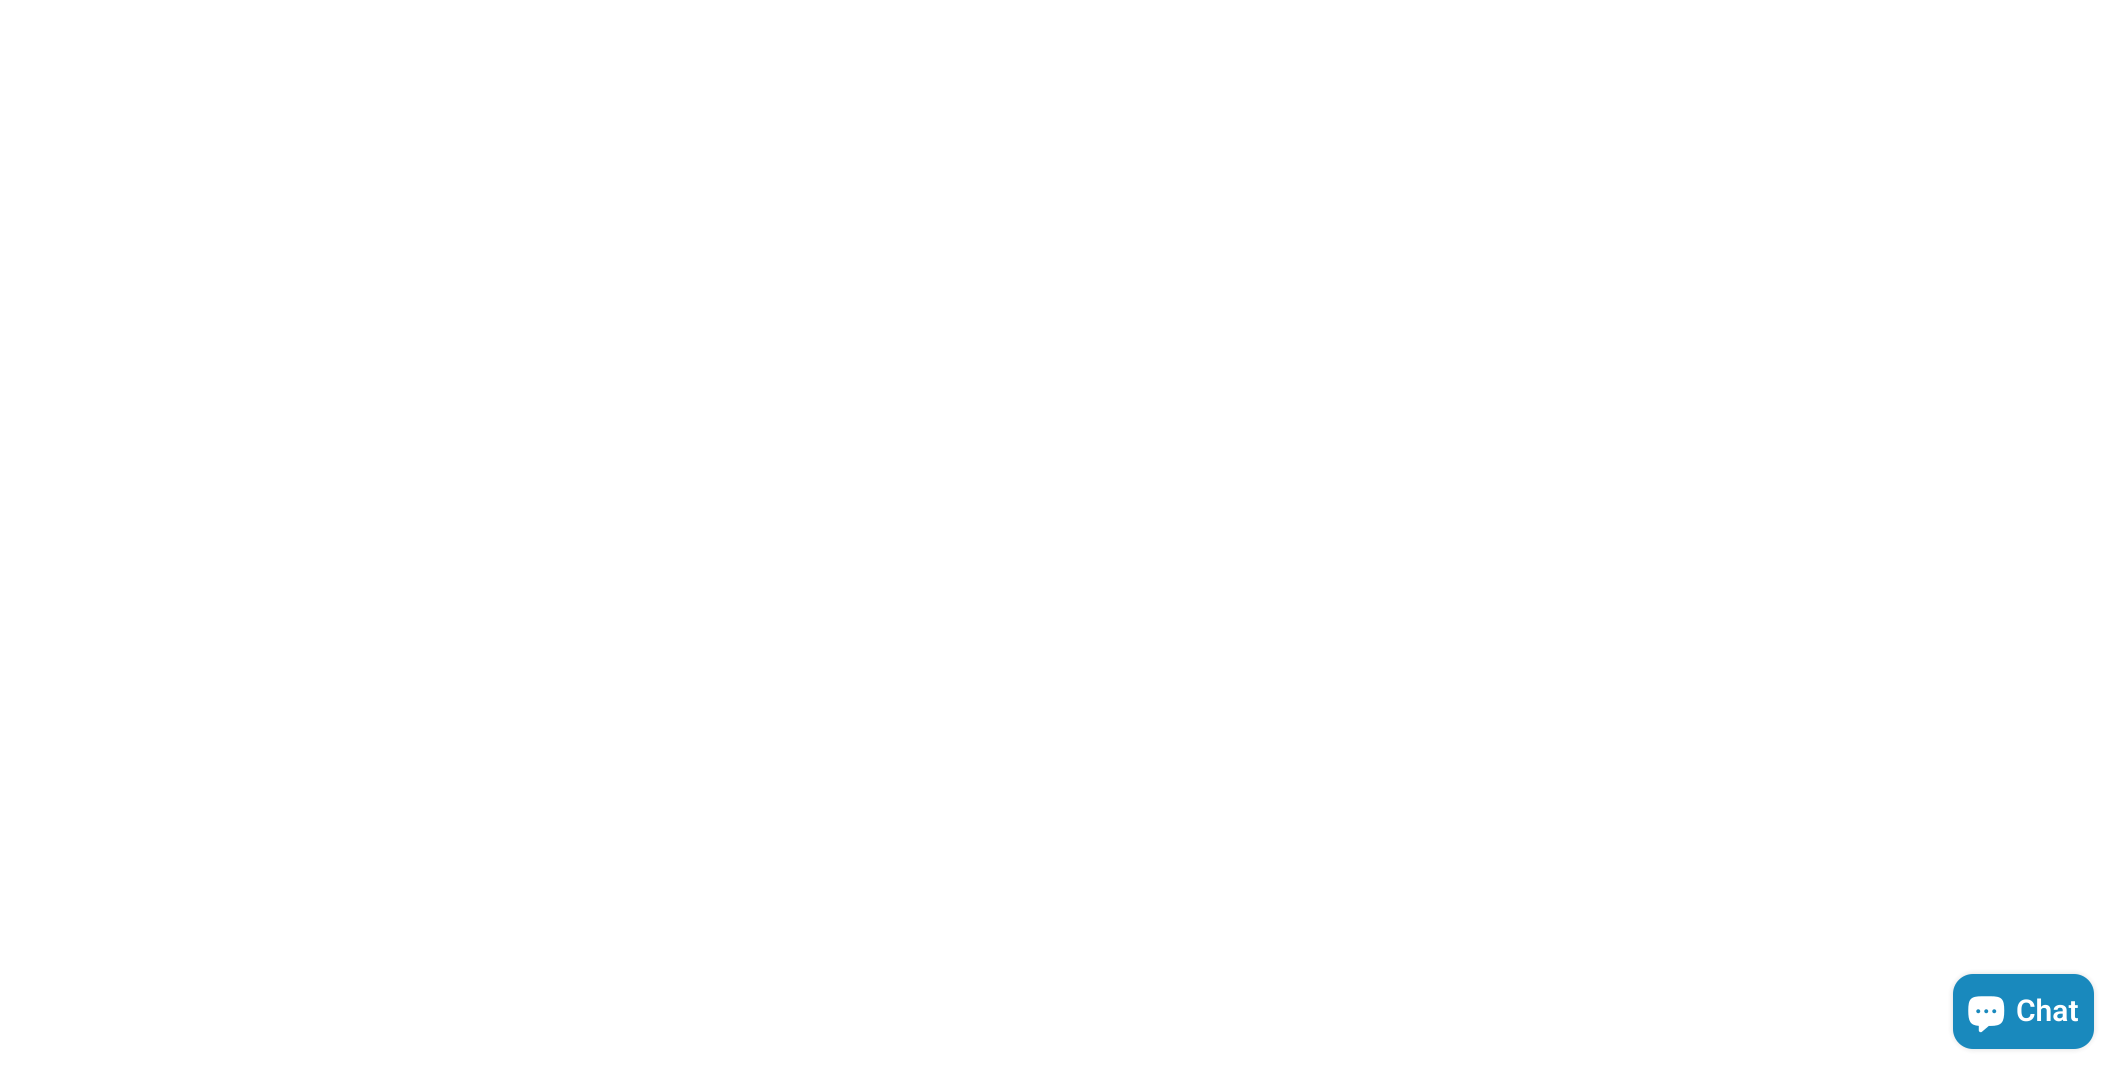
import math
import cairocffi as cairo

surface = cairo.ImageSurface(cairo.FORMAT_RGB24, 2121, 1075)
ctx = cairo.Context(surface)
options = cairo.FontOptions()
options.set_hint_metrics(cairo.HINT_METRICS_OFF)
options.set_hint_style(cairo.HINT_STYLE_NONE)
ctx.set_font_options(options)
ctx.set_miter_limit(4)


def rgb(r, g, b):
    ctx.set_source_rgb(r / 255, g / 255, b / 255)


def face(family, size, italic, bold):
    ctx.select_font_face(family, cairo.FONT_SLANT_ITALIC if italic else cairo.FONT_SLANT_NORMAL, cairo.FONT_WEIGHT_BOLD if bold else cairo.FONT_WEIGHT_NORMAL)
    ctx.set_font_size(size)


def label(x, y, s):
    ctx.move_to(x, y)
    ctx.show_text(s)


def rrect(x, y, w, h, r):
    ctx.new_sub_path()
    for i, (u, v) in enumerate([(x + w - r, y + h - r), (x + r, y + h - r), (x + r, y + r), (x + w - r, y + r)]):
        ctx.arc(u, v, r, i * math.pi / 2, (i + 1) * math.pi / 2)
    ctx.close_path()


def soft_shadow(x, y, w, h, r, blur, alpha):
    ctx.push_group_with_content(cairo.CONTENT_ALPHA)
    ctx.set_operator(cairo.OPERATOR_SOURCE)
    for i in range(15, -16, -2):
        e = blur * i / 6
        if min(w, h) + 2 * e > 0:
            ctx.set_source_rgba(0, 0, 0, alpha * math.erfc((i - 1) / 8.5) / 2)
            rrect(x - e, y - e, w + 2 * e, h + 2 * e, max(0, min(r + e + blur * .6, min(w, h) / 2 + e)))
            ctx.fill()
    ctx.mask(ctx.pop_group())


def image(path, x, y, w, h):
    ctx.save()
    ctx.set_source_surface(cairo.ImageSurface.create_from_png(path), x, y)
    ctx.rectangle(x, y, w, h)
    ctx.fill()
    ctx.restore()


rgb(255, 255, 255)
ctx.paint()
rgb(0, 0, 0)
soft_shadow(1953, 974, 141, 75, 20, 3, 0.15)
rgb(25, 137, 189)
rrect(1953, 974, 141, 75, 20)
ctx.fill()
image('image0.png', 1968, 996, 37, 37)
face('Roboto SemiBold', 30, 0, 0)
rgb(255, 255, 255)
label(2016, 1021, 'Chat')
surface.write_to_png('render.png')
